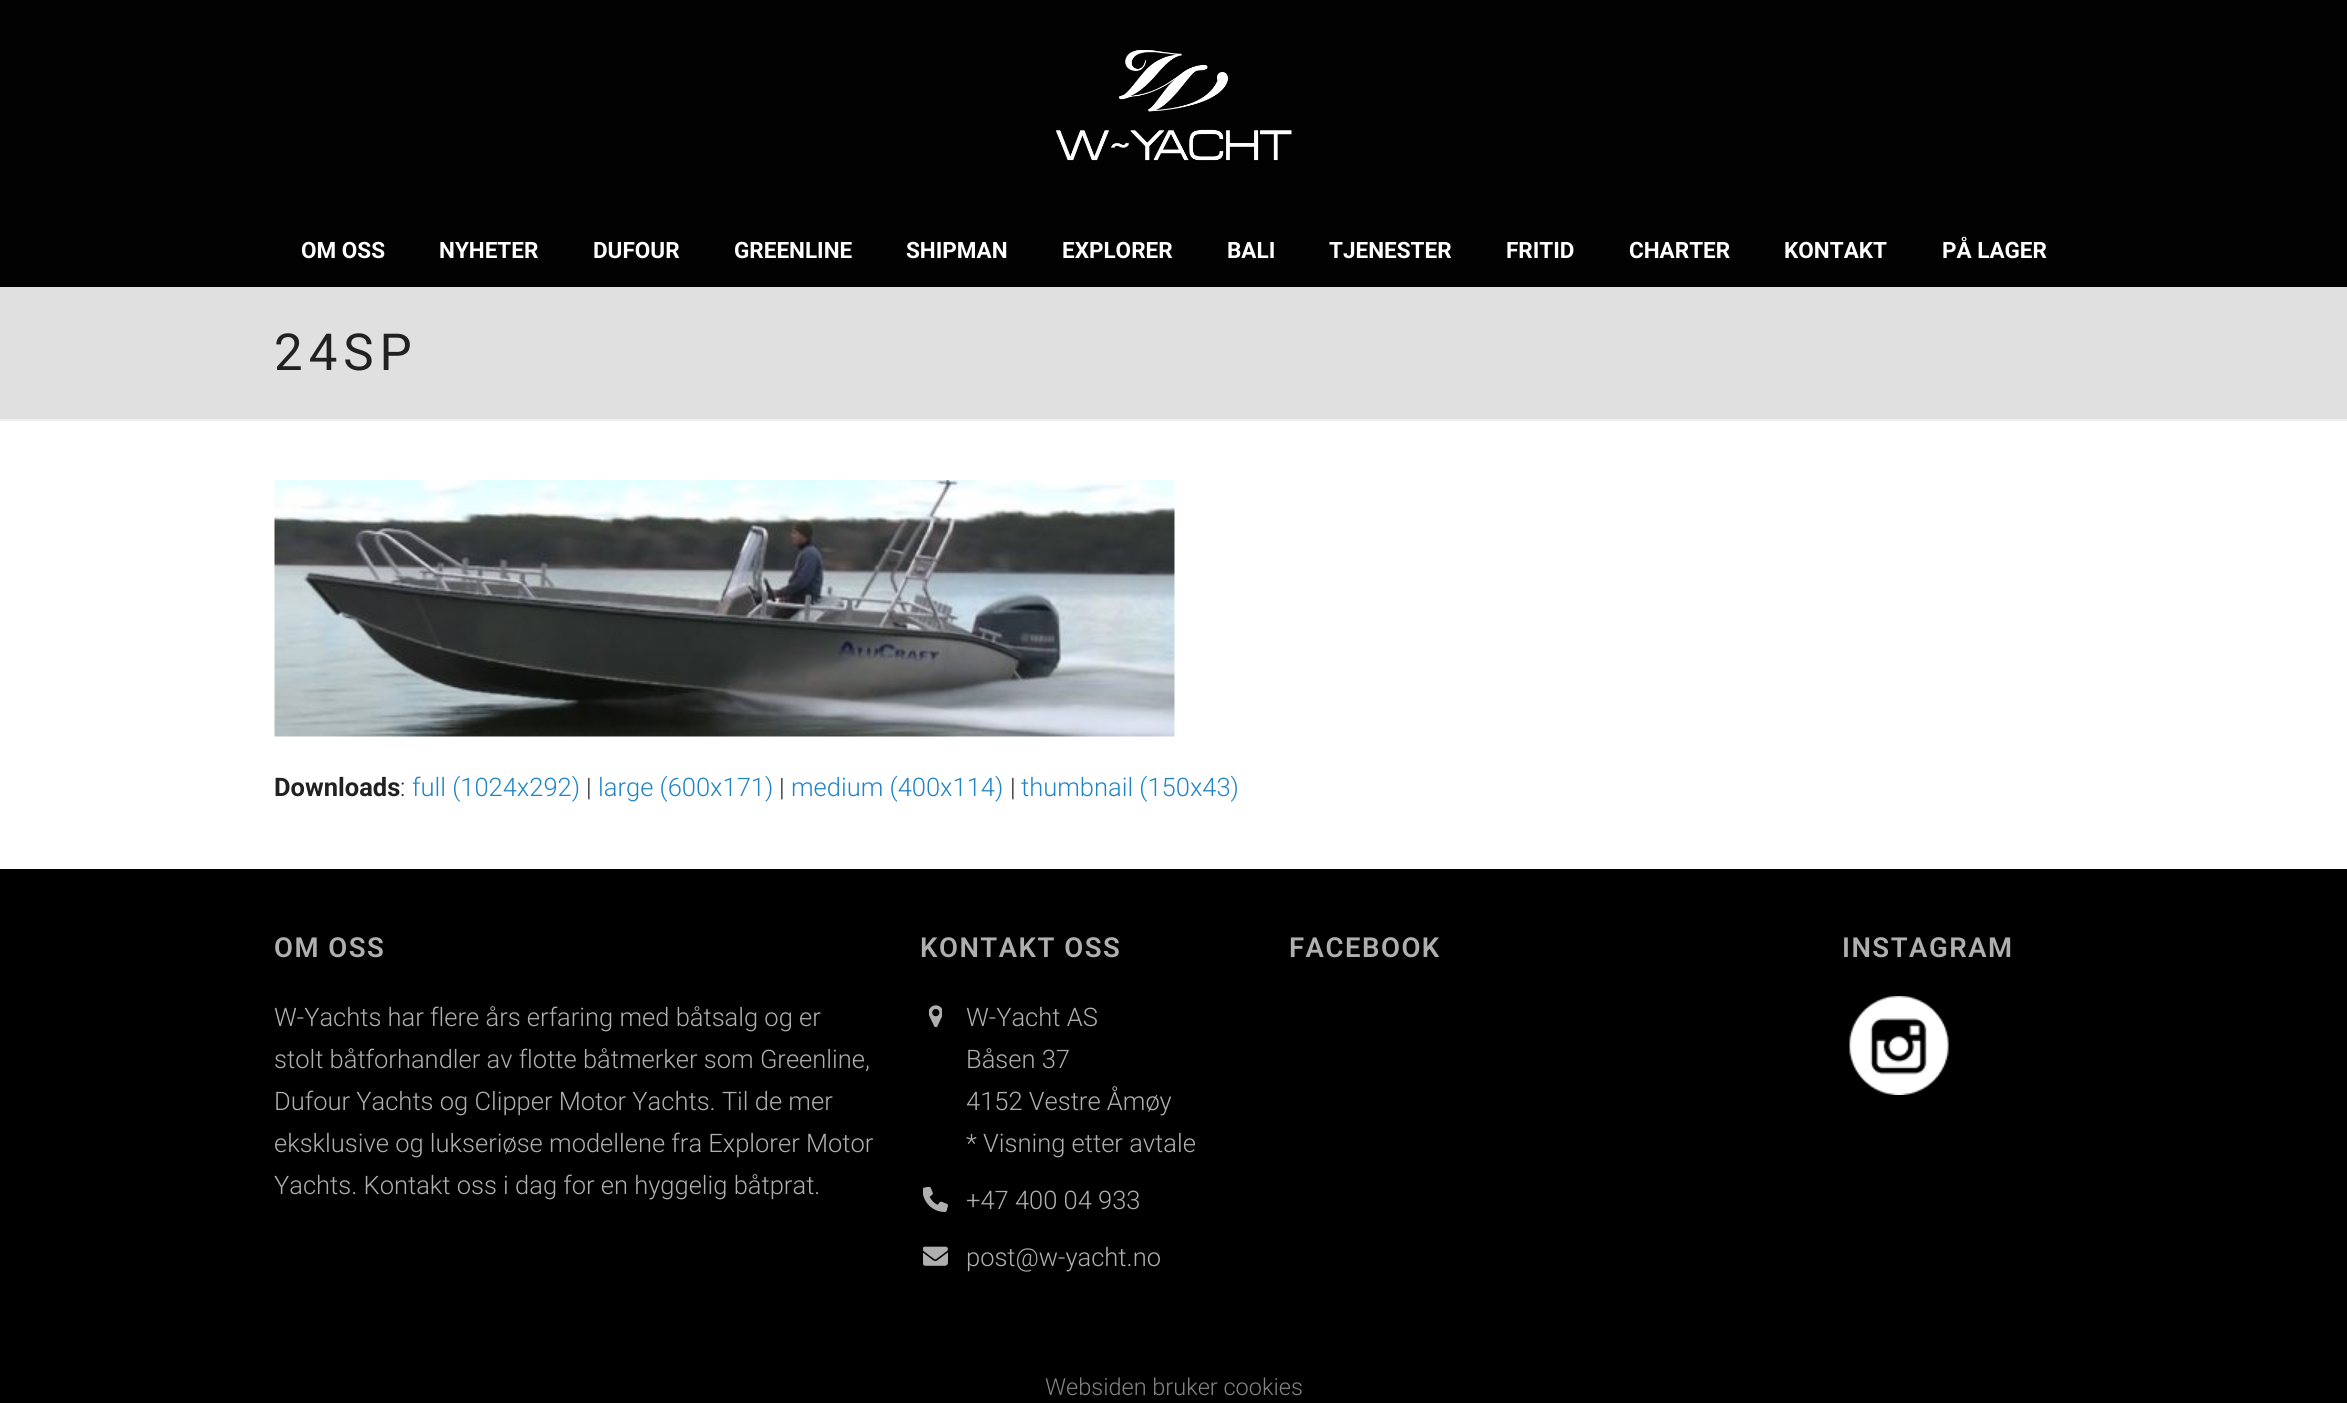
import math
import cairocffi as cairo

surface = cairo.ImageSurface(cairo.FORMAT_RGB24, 2347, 1403)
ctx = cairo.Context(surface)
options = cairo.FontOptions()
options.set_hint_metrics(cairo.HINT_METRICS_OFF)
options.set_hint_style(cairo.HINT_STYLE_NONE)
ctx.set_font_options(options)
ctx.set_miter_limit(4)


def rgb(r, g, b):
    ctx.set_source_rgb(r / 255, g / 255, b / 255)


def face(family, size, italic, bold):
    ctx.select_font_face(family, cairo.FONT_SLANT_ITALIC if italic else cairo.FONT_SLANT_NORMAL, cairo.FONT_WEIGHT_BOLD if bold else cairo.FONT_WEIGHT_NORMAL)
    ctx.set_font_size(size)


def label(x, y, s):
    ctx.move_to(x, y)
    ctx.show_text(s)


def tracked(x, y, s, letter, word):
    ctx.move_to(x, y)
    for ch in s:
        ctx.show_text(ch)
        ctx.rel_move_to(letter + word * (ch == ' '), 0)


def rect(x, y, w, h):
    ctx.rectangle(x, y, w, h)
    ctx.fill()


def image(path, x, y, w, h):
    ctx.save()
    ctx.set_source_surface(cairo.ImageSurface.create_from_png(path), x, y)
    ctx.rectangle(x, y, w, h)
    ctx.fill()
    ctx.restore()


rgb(255, 255, 255)
ctx.paint()
rgb(2, 2, 2)
rect(0, 0, 2347, 287)
image('image0.png', 1056, 50, 236, 111)
face('Roboto', 22.5, 0, 1)
rgb(255, 255, 255)
label(301, 258, 'OM OSS')
label(439, 258, 'NYHETER')
label(593, 258, 'DUFOUR')
label(734, 258, 'GREENLINE')
label(906, 258, 'SHIPMAN')
label(1062, 258, 'EXPLORER')
label(1227, 258, 'BALI')
label(1329, 258, 'TJENESTER')
label(1506, 258, 'FRITID')
label(1629, 258, 'CHARTER')
label(1784, 258, 'KONTAKT')
label(1942, 258, 'PÅ LAGER')
rgb(224, 224, 224)
rect(0, 287, 2347, 132)
rgb(238, 238, 238)
rect(0, 419, 2347, 2)
face('Roboto', 51, 0, 0)
rgb(33, 33, 33)
tracked(274, 370, '24SP', 6, 0)
image('image1.png', 274, 480, 901, 257)
face('Roboto', 25.5, 0, 1)
label(274, 796, 'Downloads')
face('Roboto Light', 25.5, 0, 0)
label(400, 796, ':')
rgb(31, 132, 198)
label(412, 796, 'full (1024x292)')
rgb(33, 33, 33)
label(586, 796, '|')
rgb(31, 132, 198)
label(598, 796, 'large (600x171)')
rgb(33, 33, 33)
label(779, 796, '|')
rgb(31, 132, 198)
label(791, 796, 'medium (400x114)')
rgb(33, 33, 33)
label(1010, 796, '|')
rgb(31, 132, 198)
label(1021, 796, 'thumbnail (150x43)')
rgb(0, 0, 0)
rect(0, 869, 2347, 534)
face('Roboto SemiBold', 27.5, 0, 0)
rgb(175, 175, 175)
tracked(274, 957, 'OM OSS', 1.5, 0)
face('Roboto Light', 25.5, 0, 0)
label(274, 1026, 'W-Yachts har flere års erfaring med båtsalg og er')
label(274, 1068, 'stolt båtforhandler av flotte båtmerker som Greenline,')
label(274, 1110, 'Dufour Yachts og Clipper Motor Yachts. Til de mer')
label(274, 1152, 'eksklusive og lukseriøse modellene fra Explorer Motor')
label(274, 1194, 'Yachts. Kontakt oss i dag for en hyggelig båtprat.')
face('Roboto SemiBold', 27.5, 0, 0)
tracked(920, 957, 'KONTAKT OSS', 1.5, 0)
image('image2.png', 929, 1005, 13, 23)
face('Roboto Light', 25.5, 0, 0)
label(966, 1026, 'W-Yacht AS')
label(966, 1068, 'Båsen 37')
label(966, 1110, '4152 Vestre Åmøy')
label(966, 1152, '* Visning etter avtale')
image('image3.png', 923, 1187, 25, 25)
label(966, 1209, '+47 400 04 933')
image('image4.png', 923, 1246, 25, 20)
label(966, 1266, 'post@w-yacht.no')
face('Roboto SemiBold', 27.5, 0, 0)
tracked(1289, 957, 'FACEBOOK', 1.5, 0)
tracked(1842, 957, 'INSTAGRAM', 1.5, 0)
image('image5.png', 1849, 996, 100, 99)
face('Roboto Light', 23.5, 0, 0)
rgb(132, 132, 132)
label(1045, 1395, 'Websiden bruker cookies')
surface.write_to_png('render.png')
